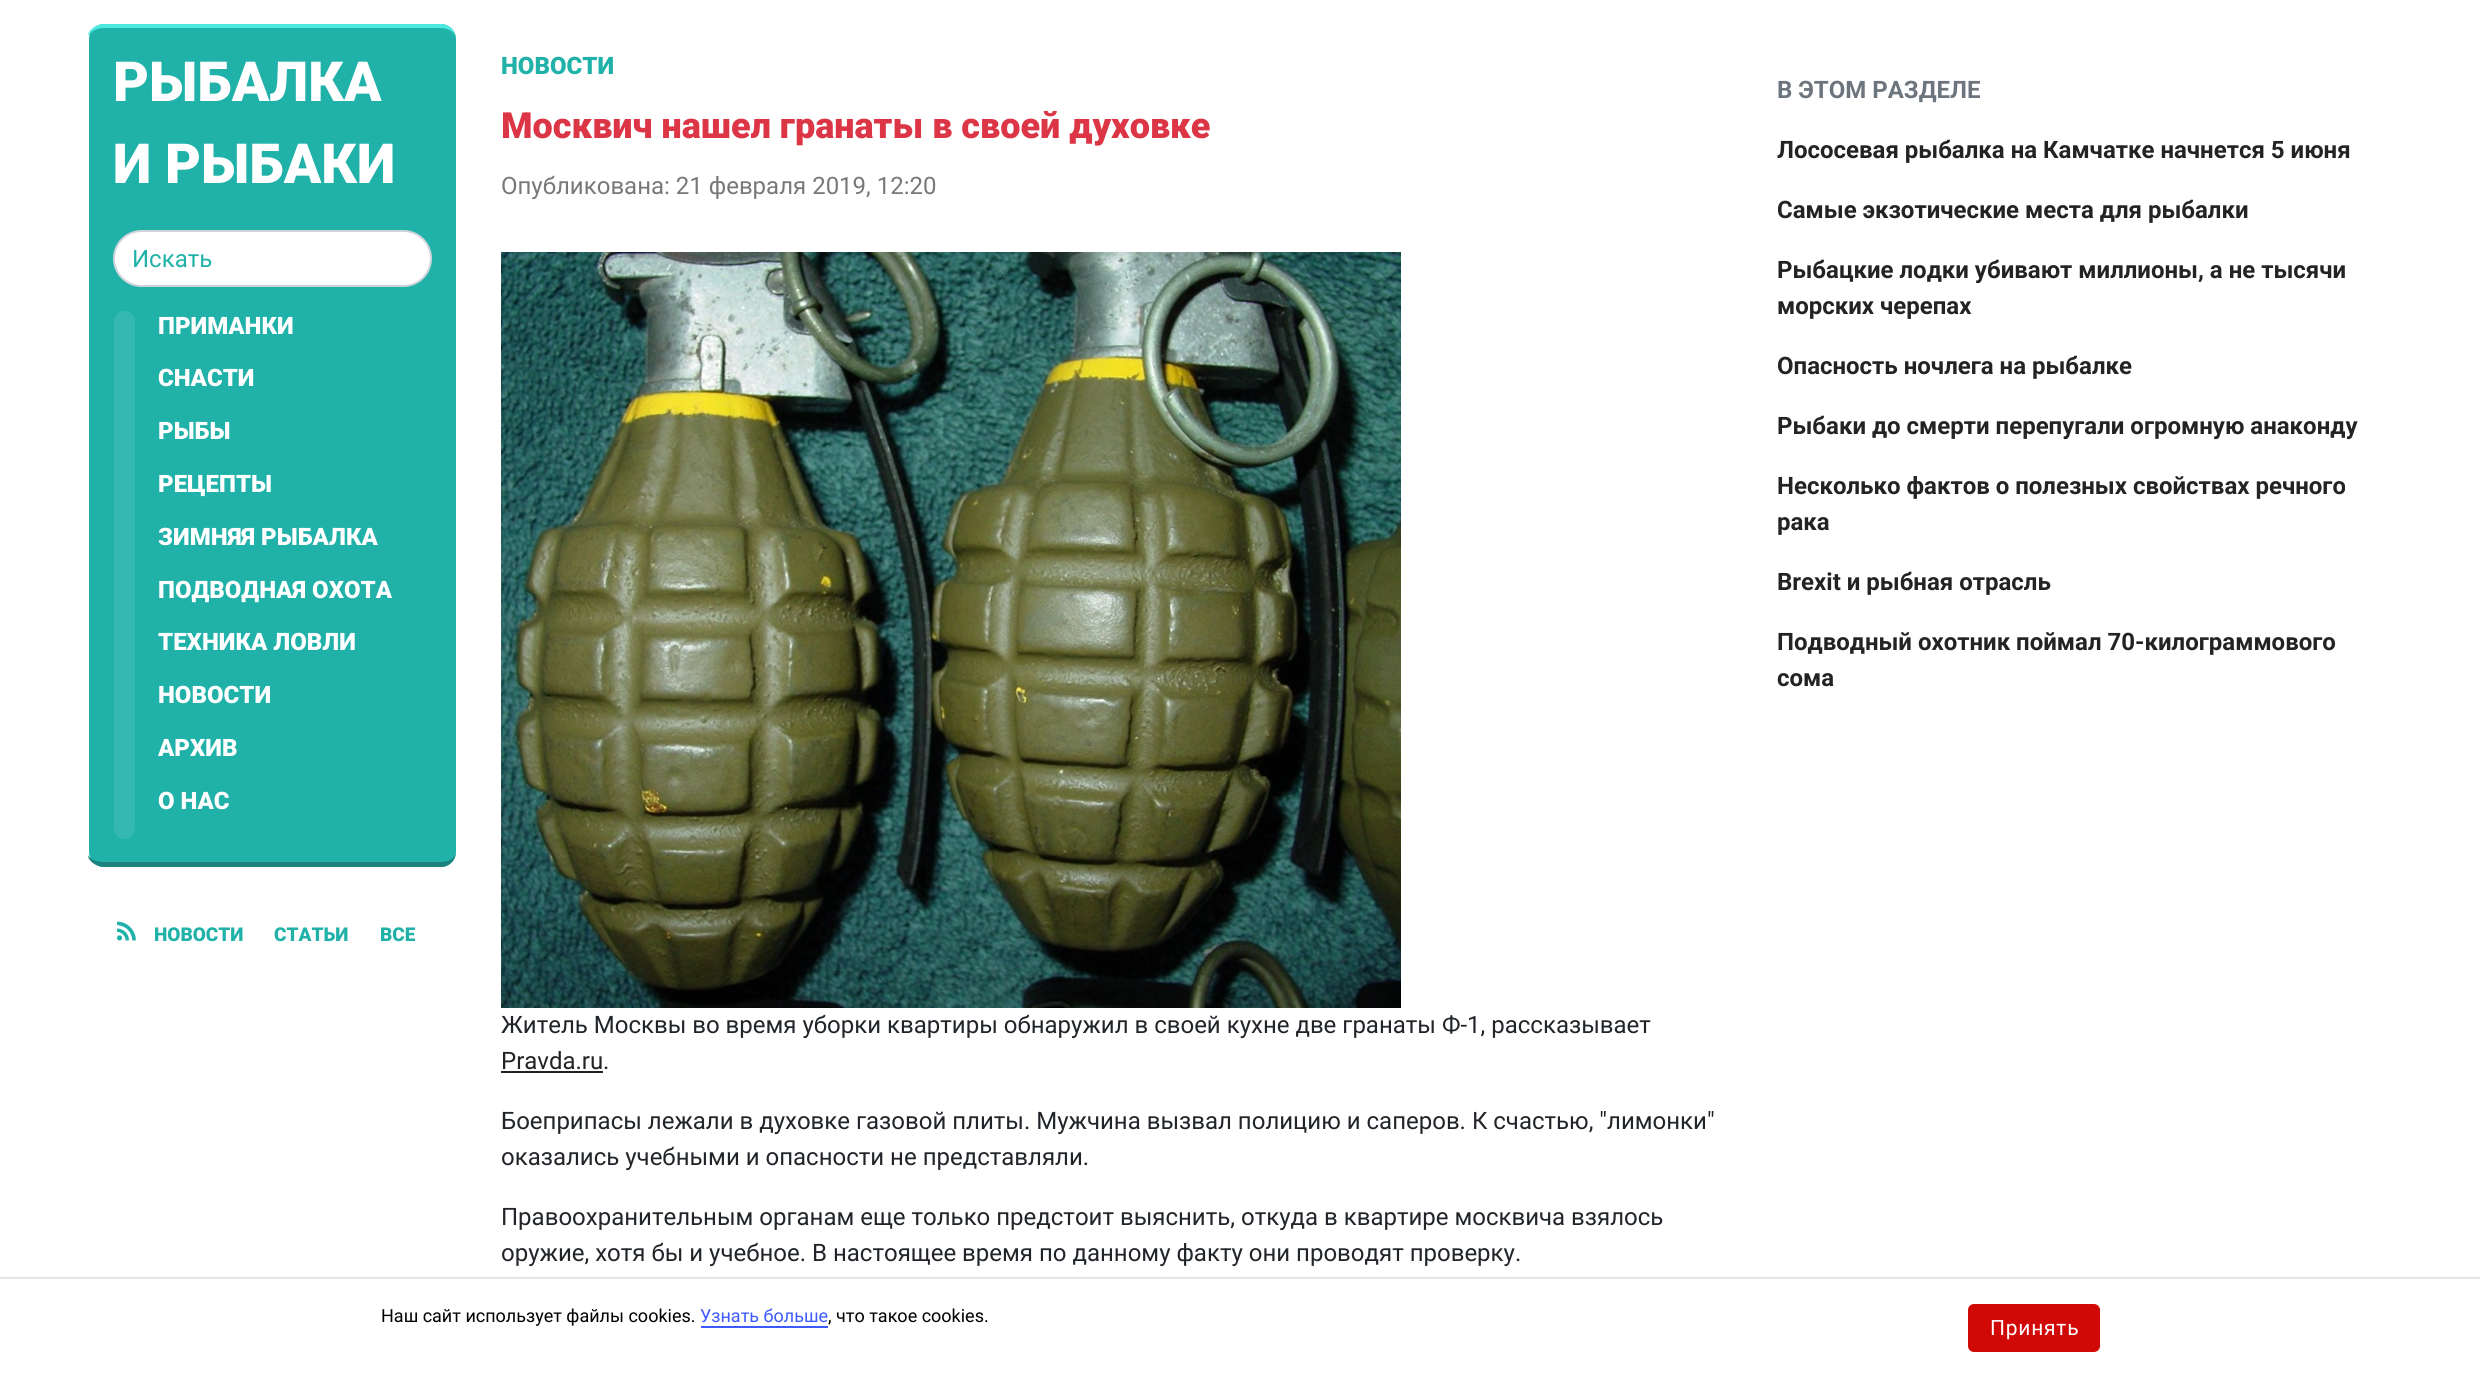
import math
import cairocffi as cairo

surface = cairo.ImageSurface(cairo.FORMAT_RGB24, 2480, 1376)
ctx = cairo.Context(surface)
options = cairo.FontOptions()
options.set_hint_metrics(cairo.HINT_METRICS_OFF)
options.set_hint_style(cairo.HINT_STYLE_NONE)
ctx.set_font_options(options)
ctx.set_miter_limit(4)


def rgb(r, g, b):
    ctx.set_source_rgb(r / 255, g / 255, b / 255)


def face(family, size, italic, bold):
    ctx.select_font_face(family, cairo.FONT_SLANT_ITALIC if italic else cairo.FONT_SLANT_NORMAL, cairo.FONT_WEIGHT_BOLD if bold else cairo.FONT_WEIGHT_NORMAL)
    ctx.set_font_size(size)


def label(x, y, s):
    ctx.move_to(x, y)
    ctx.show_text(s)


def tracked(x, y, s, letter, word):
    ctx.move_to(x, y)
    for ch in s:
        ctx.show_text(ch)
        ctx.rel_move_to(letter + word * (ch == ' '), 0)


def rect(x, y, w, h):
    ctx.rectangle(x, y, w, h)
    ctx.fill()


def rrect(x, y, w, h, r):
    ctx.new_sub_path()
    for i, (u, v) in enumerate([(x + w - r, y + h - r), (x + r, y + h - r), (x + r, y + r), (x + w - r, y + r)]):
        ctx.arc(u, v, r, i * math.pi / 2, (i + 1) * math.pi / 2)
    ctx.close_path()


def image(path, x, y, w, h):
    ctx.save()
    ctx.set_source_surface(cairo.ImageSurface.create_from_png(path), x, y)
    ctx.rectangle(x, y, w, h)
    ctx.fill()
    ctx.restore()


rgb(255, 255, 255)
ctx.paint()
rgb(32, 177, 169)
rrect(89, 24, 367, 843, 15)
ctx.fill()
rgb(77, 234, 226)
ctx.new_path()
ctx.move_to(104, 24)
ctx.curve_to(98, 24, 88, 29, 88, 36)
ctx.curve_to(90, 32, 96, 28, 104, 28)
ctx.line_to(441, 28)
ctx.curve_to(449, 28, 456, 33, 456, 39)
ctx.curve_to(456, 31, 449, 24, 441, 24)
ctx.close_path()
ctx.fill()
rgb(28, 130, 125)
ctx.new_path()
ctx.move_to(441, 867)
ctx.curve_to(449, 867, 456, 860, 456, 852)
ctx.curve_to(456, 858, 449, 862, 441, 862)
ctx.line_to(104, 862)
ctx.curve_to(96, 862, 90, 859, 88, 855)
ctx.curve_to(88, 862, 98, 867, 104, 867)
ctx.close_path()
ctx.fill()
face('Roboto Black', 55.25, 0, 0)
rgb(255, 255, 255)
label(113, 101, 'РЫБАЛКА')
label(113, 183, 'И РЫБАКИ')
rrect(114, 231, 317, 55, 27.5)
ctx.fill_preserve()
rgb(206, 212, 218)
ctx.stroke()
face('Roboto', 24, 0, 0)
rgb(32, 177, 169)
label(132, 267, 'Искать')
rgb(53, 184, 177)
rrect(114, 311, 21, 528, 10.5)
ctx.fill()
face('Roboto Black', 24, 0, 0)
rgb(255, 255, 255)
label(158, 334, 'ПРИМАНКИ')
label(158, 386, 'СНАСТИ')
label(158, 439, 'РЫБЫ')
label(158, 492, 'РЕЦЕПТЫ')
label(158, 545, 'ЗИМНЯЯ РЫБАЛКА')
label(158, 598, 'ПОДВОДНАЯ ОХОТА')
ctx.save()
ctx.rectangle(158, 311, 274, 528)
ctx.clip()
label(158, 650, 'ТЕХНИКА ЛОВЛИ')
ctx.restore()
label(158, 703, 'НОВОСТИ')
label(158, 756, 'АРХИВ')
label(158, 809, 'О НАС')
image('image0.png', 117, 921, 19, 20)
face('Roboto Black', 19, 0, 0)
rgb(32, 177, 169)
label(154, 941, 'НОВОСТИ')
label(274, 941, 'СТАТЬИ')
label(380, 941, 'ВСЕ')
face('Roboto Black', 24, 0, 0)
label(501, 74, 'НОВОСТИ')
face('Roboto Black', 36, 0, 0)
rgb(220, 53, 69)
label(501, 138, 'Москвич нашел гранаты в своей духовке')
face('Roboto', 24, 0, 0)
rgb(120, 120, 120)
label(501, 194, 'Опубликована: 21 февраля 2019, 12:20')
image('image1.png', 501, 252, 900, 756)
rgb(33, 37, 41)
label(501, 1033, 'Житель Москвы во время уборки квартиры обнаружил в своей кухне две гранаты Ф-1, рассказывает')
rgb(35, 35, 35)
label(501, 1069, 'Pravda.ru')
rect(501, 1071, 102, 2)
rgb(33, 37, 41)
label(603, 1069, '.')
label(501, 1129, 'Боеприпасы лежали в духовке газовой плиты. Мужчина вызвал полицию и саперов. К счастью, "лимонки"')
label(501, 1165, 'оказались учебными и опасности не представляли.')
label(501, 1225, 'Правоохранительным органам еще только предстоит выяснить, откуда в квартире москвича взялось')
label(501, 1261, 'оружие, хотя бы и учебное. В настоящее время по данному факту они проводят проверку.')
face('Roboto', 24, 0, 1)
rgb(108, 117, 125)
label(1777, 98, 'В ЭТОМ РАЗДЕЛЕ')
rgb(35, 35, 35)
label(1777, 158, 'Лососевая рыбалка на Камчатке начнется 5 июня')
label(1777, 218, 'Самые экзотические места для рыбалки')
label(1777, 278, 'Рыбацкие лодки убивают миллионы, а не тысячи')
label(1777, 314, 'морских черепах')
label(1777, 374, 'Опасность ночлега на рыбалке')
label(1777, 434, 'Рыбаки до смерти перепугали огромную анаконду')
label(1777, 494, 'Несколько фактов о полезных свойствах речного')
label(1777, 530, 'рака')
label(1777, 590, 'Brexit и рыбная отрасль')
label(1777, 650, 'Подводный охотник поймал 70-килограммового')
label(1777, 686, 'сома')
rgb(229, 229, 229)
rect(0, 1277, 2480, 2)
face('Roboto', 18, 0, 0)
rgb(0, 0, 0)
label(381, 1322, 'Наш сайт использует файлы cookies.')
rgb(61, 90, 254)
label(700, 1322, 'Узнать больше')
rect(701, 1326, 127, 2)
rgb(0, 0, 0)
label(828, 1322, ', что такое cookies.')
rgb(209, 9, 6)
rrect(1968, 1304, 132, 48, 6)
ctx.fill()
face('Roboto', 21, 0, 0)
rgb(255, 255, 255)
tracked(1990, 1335, 'Принять', 0.75, 0)
surface.write_to_png('render.png')
